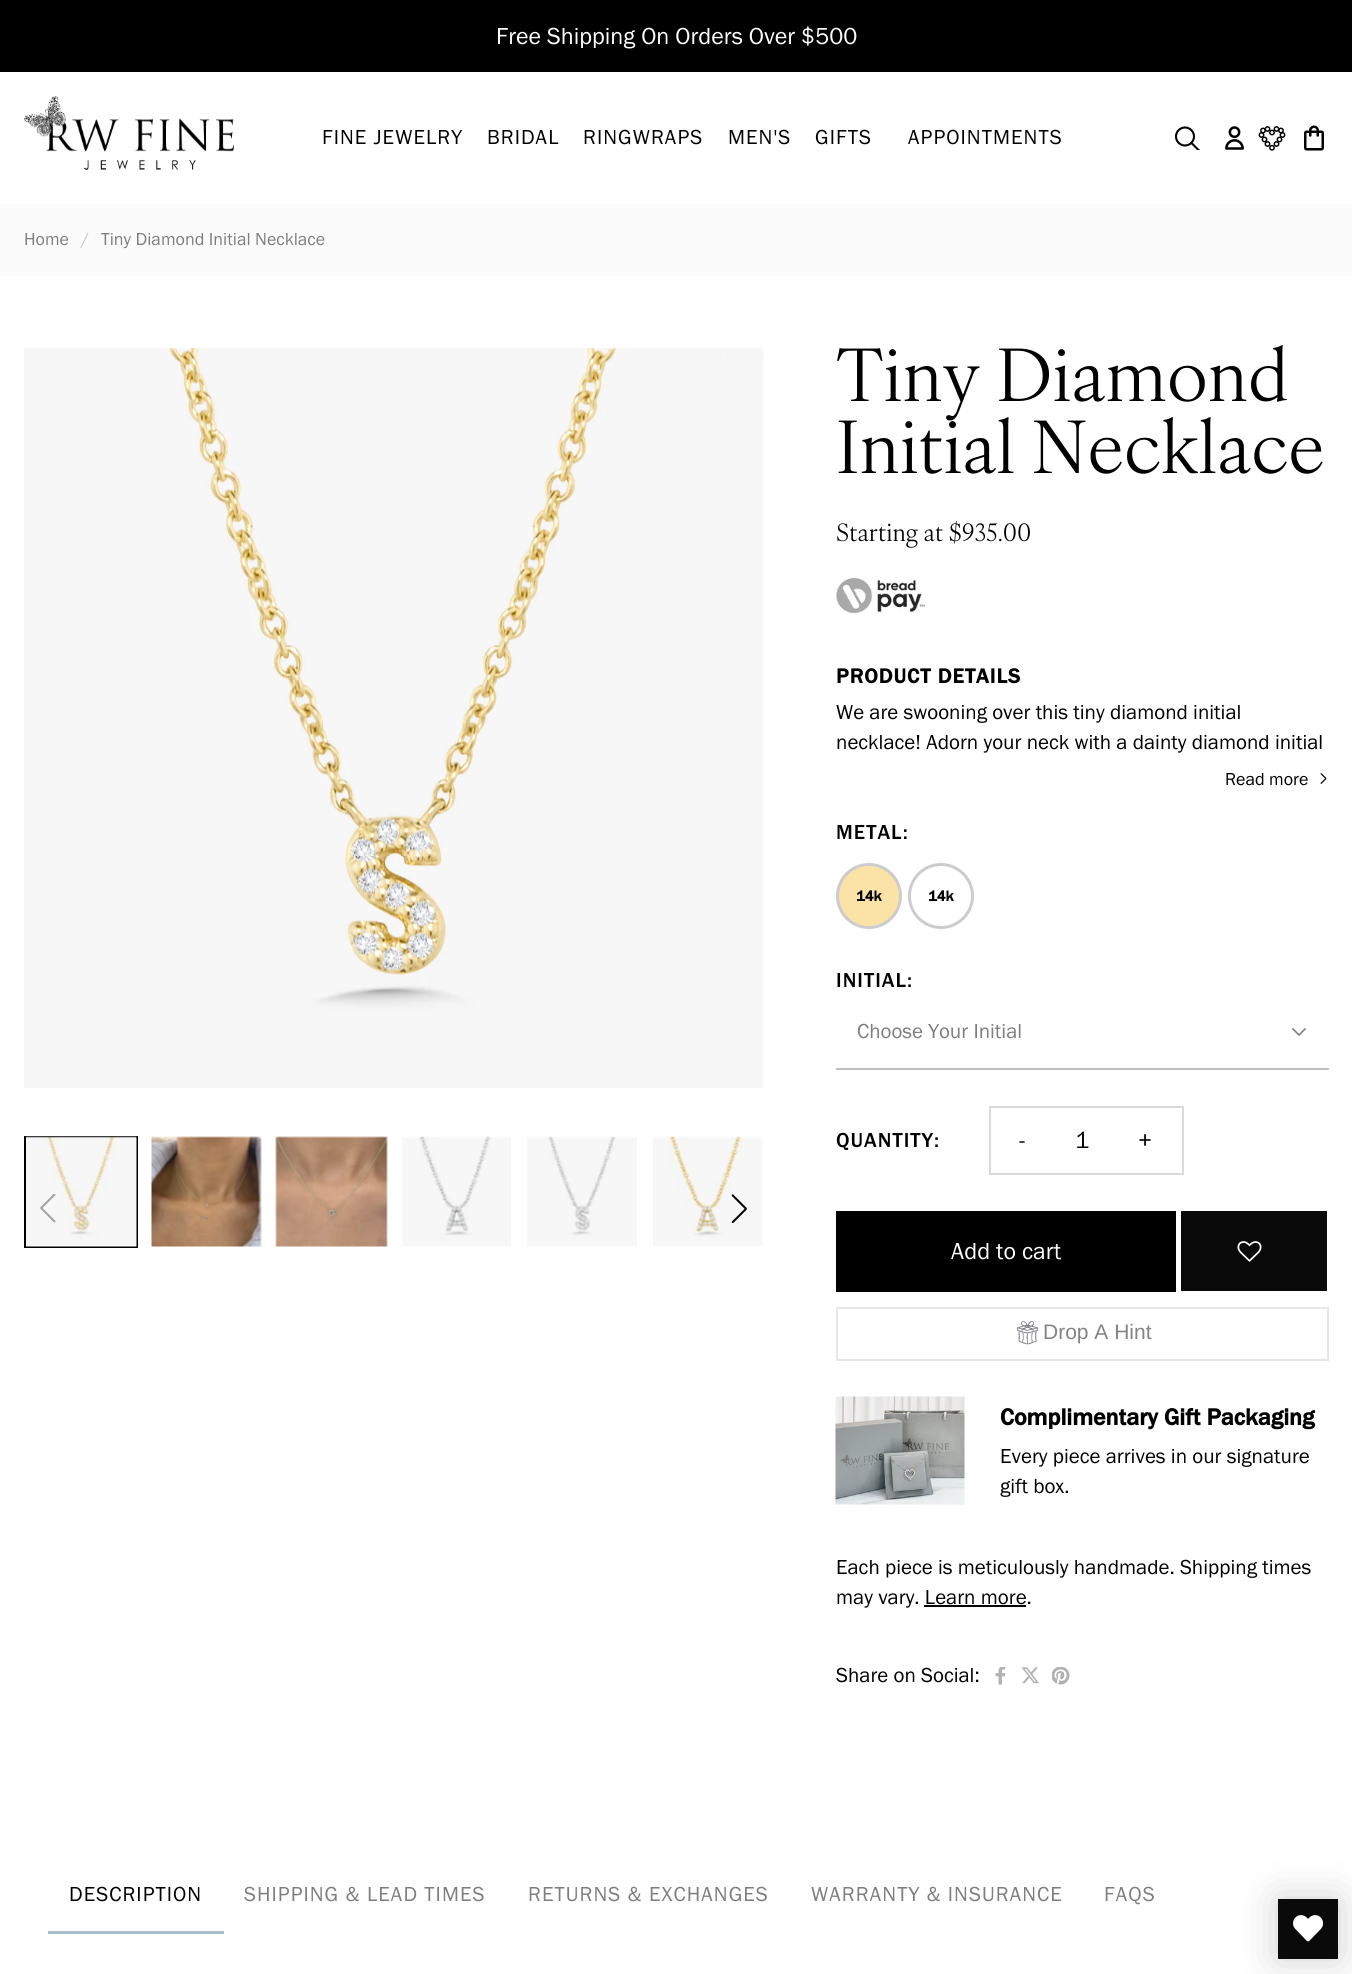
import math
import cairocffi as cairo

surface = cairo.ImageSurface(cairo.FORMAT_RGB24, 1352, 1974)
ctx = cairo.Context(surface)
options = cairo.FontOptions()
options.set_hint_metrics(cairo.HINT_METRICS_OFF)
options.set_hint_style(cairo.HINT_STYLE_NONE)
ctx.set_font_options(options)
ctx.set_miter_limit(4)


def rgb(r, g, b):
    ctx.set_source_rgb(r / 255, g / 255, b / 255)


def face(family, size, italic, bold):
    ctx.select_font_face(family, cairo.FONT_SLANT_ITALIC if italic else cairo.FONT_SLANT_NORMAL, cairo.FONT_WEIGHT_BOLD if bold else cairo.FONT_WEIGHT_NORMAL)
    ctx.set_font_size(size)


def label(x, y, s):
    ctx.move_to(x, y)
    ctx.show_text(s)


def tracked(x, y, s, letter, word):
    ctx.move_to(x, y)
    for ch in s:
        ctx.show_text(ch)
        ctx.rel_move_to(letter + word * (ch == ' '), 0)


def rect(x, y, w, h):
    ctx.rectangle(x, y, w, h)
    ctx.fill()


def rrect(x, y, w, h, r):
    ctx.new_sub_path()
    for i, (u, v) in enumerate([(x + w - r, y + h - r), (x + r, y + h - r), (x + r, y + r), (x + w - r, y + r)]):
        ctx.arc(u, v, r, i * math.pi / 2, (i + 1) * math.pi / 2)
    ctx.close_path()


def soft_shadow(x, y, w, h, r, blur, alpha):
    ctx.push_group_with_content(cairo.CONTENT_ALPHA)
    ctx.set_operator(cairo.OPERATOR_SOURCE)
    for i in range(15, -16, -2):
        e = blur * i / 6
        if min(w, h) + 2 * e > 0:
            ctx.set_source_rgba(0, 0, 0, alpha * math.erfc((i - 1) / 8.5) / 2)
            rrect(x - e, y - e, w + 2 * e, h + 2 * e, max(0, min(r + e + blur * .6, min(w, h) / 2 + e)))
            ctx.fill()
    ctx.mask(ctx.pop_group())


def image(path, x, y, w, h):
    ctx.save()
    ctx.set_source_surface(cairo.ImageSurface.create_from_png(path), x, y)
    ctx.rectangle(x, y, w, h)
    ctx.fill()
    ctx.restore()


rgb(255, 255, 255)
ctx.paint()
rgb(0, 0, 0)
rect(0, 0, 1352, 72)
face('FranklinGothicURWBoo', 24, 0, 0)
rgb(255, 255, 255)
label(496, 44, 'Free Shipping On Orders Over $500')
image('image0.png', 24, 96, 210, 74)
face('FranklinGothicURWBoo', 21, 0, 0)
rgb(0, 0, 0)
tracked(322, 144, 'FINE JEWELRY', 1.05, 0)
tracked(487, 144, 'BRIDAL', 1.05, 0)
tracked(583, 144, 'RINGWRAPS', 1.05, 0)
tracked(728, 144, 'MEN\'S', 1.05, 0)
tracked(815, 144, 'GIFTS', 1.05, 0)
tracked(908, 144, 'APPOINTMENTS', 1.05, 0)
ctx.save()
ctx.rectangle(1175, 126, 25, 24)
ctx.clip()
ctx.new_path()
ctx.move_to(1198.5, 150)
ctx.line_to(1191.5, 143)
ctx.set_line_width(2.1)
ctx.set_line_cap(cairo.LINE_CAP_SQUARE)
ctx.stroke()
ctx.restore()
ctx.arc(1185, 136.5, 9, 0, 2 * math.pi)
ctx.set_line_width(2.1)
ctx.stroke()
image('image1.png', 1225, 126, 19, 24)
image('image2.png', 1258, 126, 28, 25)
image('image3.png', 1304, 125, 20, 26)
rgb(251, 251, 251)
rect(0, 204, 1352, 72)
face('FranklinGothicURWBoo', 18, 0, 0)
rgb(126, 126, 126)
label(24, 245, 'Home')
rgb(201, 201, 201)
label(81, 245, '/')
rgb(126, 126, 126)
label(101, 245, 'Tiny Diamond Initial Necklace')
image('image4.png', 24, 348, 740, 740)
ctx.rectangle(25, 1137, 112, 110)
rgb(0, 0, 0)
ctx.set_line_width(2)
ctx.stroke()
image('image5.png', 26, 1136, 111, 111)
image('image6.png', 151, 1136, 111, 111)
image('image7.png', 275, 1136, 113, 111)
image('image8.png', 402, 1136, 109, 110)
image('image9.png', 527, 1136, 110, 110)
image('image10.png', 653, 1136, 110, 110)
image('image11.png', 40, 1194, 16, 29)
image('image12.png', 731, 1194, 16, 29)
face('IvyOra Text', 72, 0, 0)
label(836, 401, 'Tiny Diamond')
label(836, 473, 'Initial Necklace')
face('IvyOra Text', 24, 0, 0)
label(836, 541, 'Starting at $935.00')
image('image13.png', 836, 577, 89, 37)
face('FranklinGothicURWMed', 21, 0, 1)
tracked(836, 683, 'PRODUCT DETAILS', 1.05, 0)
face('FranklinGothicURWBoo', 21, 0, 0)
label(836, 719, 'We are swooning over this tiny diamond initial')
label(836, 749, 'necklace! Adorn your neck with a dainty diamond initial')
face('FranklinGothicURWBoo', 18, 0, 0)
label(1225, 785, 'Read more')
image('image14.png', 1320, 773, 7, 11)
face('FranklinGothicURWMed', 21, 0, 0)
tracked(836, 839, 'METAL:', 1.05, 0)
rgb(251, 226, 167)
ctx.new_path()
ctx.arc(869, 896, 31.5, 0, 2 * math.pi)
ctx.fill_preserve()
rgb(204, 204, 204)
ctx.set_line_width(3)
ctx.stroke()
face('FranklinGothicURWMed', 15, 0, 1)
rgb(0, 0, 0)
label(856, 901, '14k')
ctx.new_path()
ctx.arc(941, 896, 31.5, 0, 2 * math.pi)
rgb(204, 204, 204)
ctx.stroke()
rgb(0, 0, 0)
label(928, 901, '14k')
face('FranklinGothicURWMed', 21, 0, 0)
tracked(836, 987, 'INITIAL:', 1.05, 0)
rgb(191, 191, 191)
rect(836, 1068, 493, 2)
face('FranklinGothicURWBoo', 21, 0, 0)
rgb(126, 126, 126)
label(857, 1038, 'Choose Your Initial')
ctx.new_path()
ctx.move_to(1305, 1029)
ctx.line_to(1299, 1035)
ctx.line_to(1293, 1029)
ctx.set_line_width(1.6)
ctx.set_line_cap(cairo.LINE_CAP_SQUARE)
ctx.stroke()
face('FranklinGothicURWMed', 21, 0, 0)
rgb(0, 0, 0)
tracked(836, 1147, 'QUANTITY:', 1.05, 0)
ctx.rectangle(990, 1107, 193, 67)
rgb(218, 218, 218)
ctx.set_line_width(2)
ctx.set_line_cap(cairo.LINE_CAP_BUTT)
ctx.stroke()
face('FranklinGothicURWBoo', 24, 0, 0)
rgb(0, 0, 0)
label(1019, 1148, '-')
label(1075, 1148, '1')
label(1138, 1148, '+')
rect(836, 1211, 340, 81)
rgb(255, 255, 255)
label(951, 1259, 'Add to cart')
rgb(10, 10, 10)
rect(1181, 1211, 146, 80)
image('image15.png', 1237, 1241, 25, 21)
ctx.rectangle(837, 1308, 491, 52)
rgb(229, 231, 235)
ctx.stroke()
image('image16.png', 1016, 1321, 23, 24)
face('Liberation Sans', 21, 0, 0)
rgb(132, 132, 132)
label(1043, 1339, 'Drop A Hint')
image('image17.png', 835, 1396, 130, 109)
face('FranklinGothicURWMed', 24, 0, 1)
rgb(0, 0, 0)
label(1000, 1425, 'Complimentary Gift Packaging')
face('FranklinGothicURWBoo', 21, 0, 0)
label(1000, 1463, 'Every piece arrives in our signature')
label(1000, 1493, 'gift box.')
label(836, 1574, 'Each piece is meticulously handmade. Shipping times')
label(836, 1604, 'may vary. Learn more.')
rect(924, 1605, 102, 2)
label(836, 1682, 'Share on Social:')
image('image18.png', 995, 1667, 11, 18)
image('image19.png', 1022, 1667, 17, 17)
image('image20.png', 1052, 1667, 18, 18)
rgb(166, 190, 208)
rect(48, 1931, 176, 3)
rgb(0, 0, 0)
tracked(69, 1901, 'DESCRIPTION', 1.05, 0)
rgb(126, 126, 126)
tracked(244, 1901, 'SHIPPING & LEAD TIMES', 1.05, 0)
tracked(528, 1901, 'RETURNS & EXCHANGES', 1.05, 0)
tracked(811, 1901, 'WARRANTY & INSURANCE', 1.05, 0)
tracked(1104, 1901, 'FAQS', 1.05, 0)
rgb(0, 0, 0)
soft_shadow(1278, 1899, 60, 60, 0, 19, 0.2)
rgb(10, 10, 10)
rect(1278, 1899, 60, 60)
image('image21.png', 1293, 1915, 31, 27)
surface.write_to_png('render.png')
